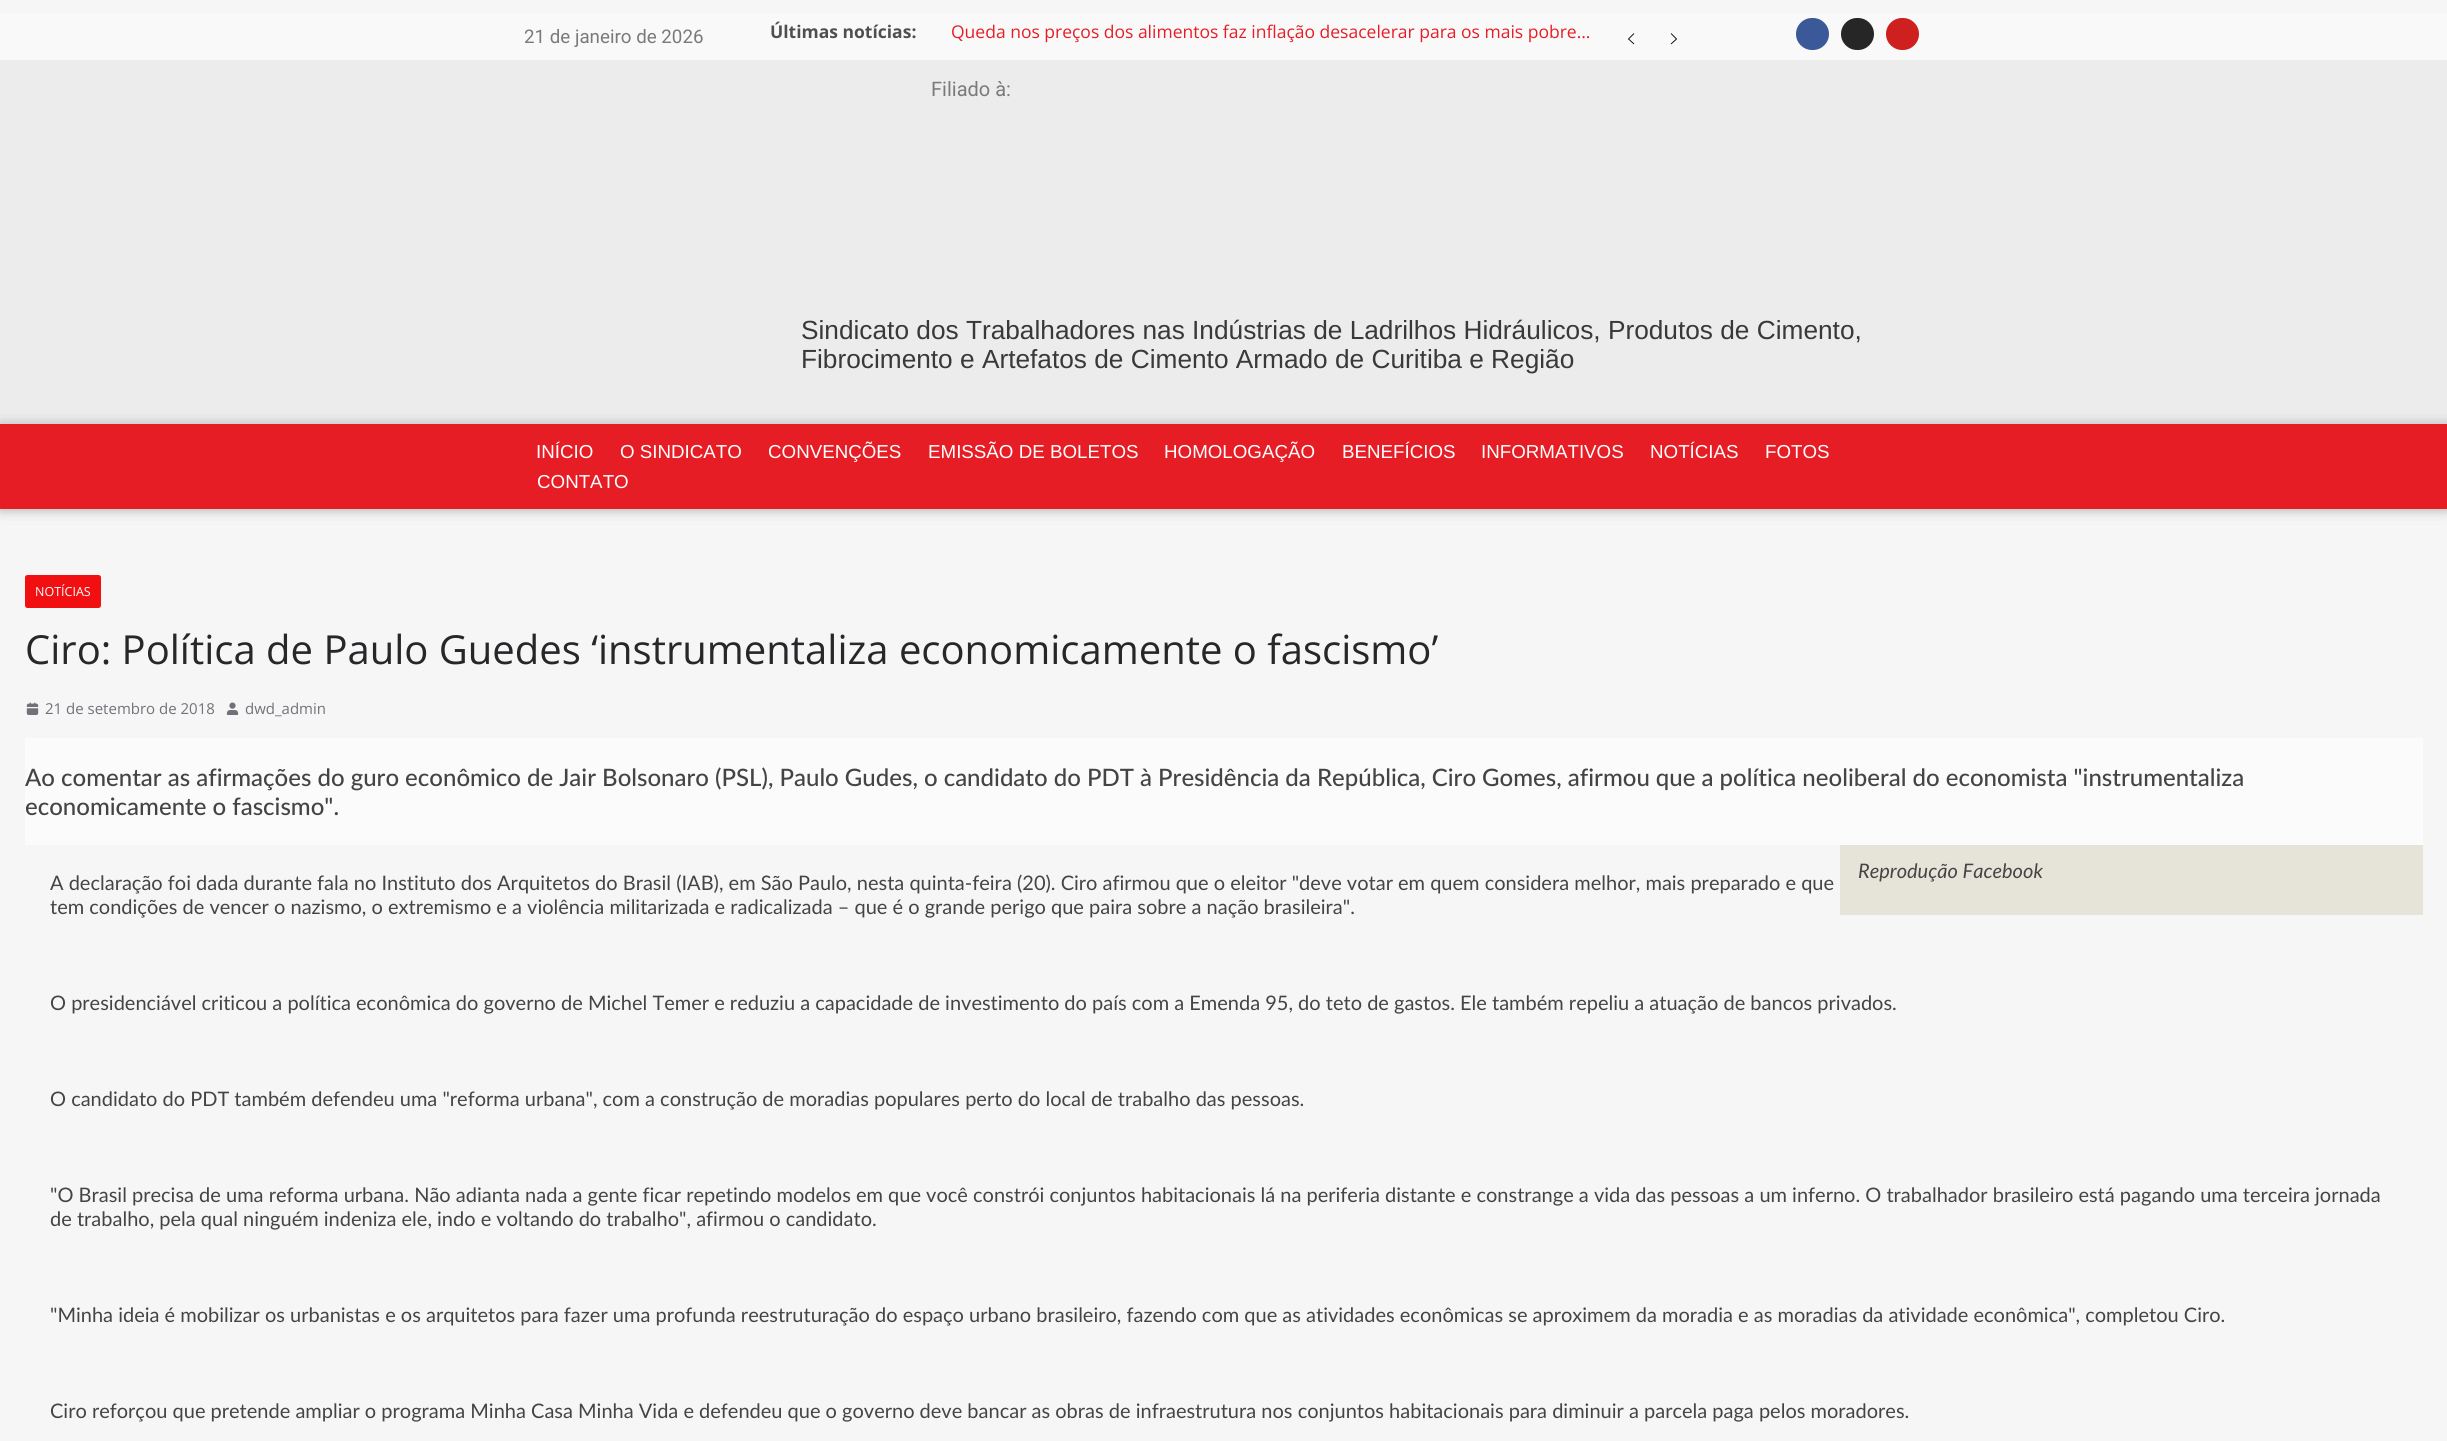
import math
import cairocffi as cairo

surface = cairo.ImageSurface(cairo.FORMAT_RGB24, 2447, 1441)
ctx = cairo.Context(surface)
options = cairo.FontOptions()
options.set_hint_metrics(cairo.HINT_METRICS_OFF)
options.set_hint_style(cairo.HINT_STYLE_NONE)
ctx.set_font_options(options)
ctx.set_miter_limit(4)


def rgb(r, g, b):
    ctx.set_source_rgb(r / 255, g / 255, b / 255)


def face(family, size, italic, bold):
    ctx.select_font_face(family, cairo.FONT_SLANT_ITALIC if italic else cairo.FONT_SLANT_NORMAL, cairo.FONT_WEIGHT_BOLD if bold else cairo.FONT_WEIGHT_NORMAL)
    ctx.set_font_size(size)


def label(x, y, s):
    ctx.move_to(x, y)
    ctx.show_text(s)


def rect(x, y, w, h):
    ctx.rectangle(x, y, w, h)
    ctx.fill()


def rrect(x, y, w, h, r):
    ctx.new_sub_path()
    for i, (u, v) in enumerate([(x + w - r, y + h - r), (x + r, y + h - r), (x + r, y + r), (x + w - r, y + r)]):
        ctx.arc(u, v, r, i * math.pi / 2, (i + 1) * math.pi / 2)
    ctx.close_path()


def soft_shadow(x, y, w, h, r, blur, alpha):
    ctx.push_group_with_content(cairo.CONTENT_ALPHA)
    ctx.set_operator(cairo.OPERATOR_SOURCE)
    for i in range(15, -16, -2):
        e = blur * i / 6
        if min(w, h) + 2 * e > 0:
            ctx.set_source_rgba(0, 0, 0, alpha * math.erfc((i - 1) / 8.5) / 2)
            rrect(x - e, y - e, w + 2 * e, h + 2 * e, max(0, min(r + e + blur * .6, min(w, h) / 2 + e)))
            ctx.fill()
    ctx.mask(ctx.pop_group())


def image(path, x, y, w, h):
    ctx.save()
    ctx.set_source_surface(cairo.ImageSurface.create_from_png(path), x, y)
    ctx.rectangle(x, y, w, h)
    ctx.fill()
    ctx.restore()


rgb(246, 246, 246)
ctx.paint()
rgb(249, 249, 249)
rect(0, 13, 2447, 47)
face('Roboto', 18.75, 0, 0)
rgb(122, 122, 122)
label(524, 43, '21 de janeiro de 2026')
face('Open Sans', 17.5, 0, 1)
rgb(79, 79, 79)
label(770, 38, 'Últimas notícias:')
face('Open Sans', 17.5, 0, 0)
rgb(230, 29, 37)
label(951, 38, 'Queda nos preços dos alimentos faz inflação desacelerar para os mais pobre…')
ctx.new_path()
ctx.move_to(1634, 44)
ctx.line_to(1628.5, 39)
ctx.line_to(1634, 33.5)
ctx.move_to(1671, 33.5)
ctx.line_to(1676.5, 39)
ctx.line_to(1671, 44)
rgb(0, 0, 0)
ctx.set_line_width(0.9)
ctx.stroke()
rgb(59, 89, 152)
rrect(1796, 18, 33, 32, 16)
ctx.fill()
rgb(38, 38, 38)
rrect(1841, 18, 33, 32, 16)
ctx.fill()
rgb(205, 32, 31)
rrect(1886, 18, 33, 32, 16)
ctx.fill()
rgb(236, 236, 236)
rect(0, 60, 2447, 364)
face('Roboto', 20, 0, 0)
rgb(122, 122, 122)
label(931, 96, 'Filiado à:')
face('Liberation Sans', 26.25, 0, 0)
rgb(57, 57, 57)
label(801, 339, 'Sindicato dos Trabalhadores nas Indústrias de Ladrilhos Hidráulicos, Produtos de Cimento,')
label(801, 368, 'Fibrocimento e Artefatos de Cimento Armado de Curitiba e Região')
rgb(105, 105, 105)
soft_shadow(0, 425, 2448, 85, 0, 6, 0.5)
rgb(230, 29, 37)
rect(0, 424, 2447, 85)
face('Liberation Sans', 18.75, 0, 0)
rgb(255, 255, 255)
label(536, 458, 'INÍCIO')
label(620, 458, 'O SINDICATO')
label(768, 458, 'CONVENÇÕES')
label(928, 458, 'EMISSÃO DE BOLETOS')
label(1164, 458, 'HOMOLOGAÇÃO')
label(1342, 458, 'BENEFÍCIOS')
label(1481, 458, 'INFORMATIVOS')
label(1650, 458, 'NOTÍCIAS')
label(1765, 458, 'FOTOS')
label(537, 488, 'CONTATO')
rgb(241, 15, 17)
rrect(25, 575, 76, 33, 2.5)
ctx.fill()
face('Open Sans', 12.5, 0, 0)
rgb(255, 255, 255)
label(35, 596, 'NOTÍCIAS')
face('Open Sans', 40, 0, 0)
rgb(39, 39, 42)
label(25, 664, 'Ciro: Política de Paulo Guedes ‘instrumentaliza economicamente o fascismo’')
image('image0.png', 26, 702, 13, 13)
face('Open Sans', 15, 0, 0)
rgb(113, 113, 122)
label(45, 714, '21 de setembro de 2018')
image('image1.png', 226, 702, 13, 13)
label(245, 714, 'dwd_admin')
rgb(251, 251, 251)
rect(25, 738, 2398, 107)
face('Lato Medium', 24, 0, 0)
rgb(68, 68, 68)
label(25, 786, 'Ao comentar as afirmações do guro econômico de Jair Bolsonaro (PSL), Paulo Gudes, o candidato do PDT à Presidência da República, Ciro Gomes, afirmou que a política neoliberal do economista "instrumentaliza')
label(25, 815, 'economicamente o fascismo".')
rgb(230, 228, 217)
rect(1840, 845, 583, 70)
face('Lato', 20, 1, 0)
rgb(68, 68, 68)
label(1858, 878, 'Reprodução Facebook')
face('Lato', 20, 0, 0)
label(50, 890, 'A declaração foi dada durante fala no Instituto dos Arquitetos do Brasil (IAB), em São Paulo, nesta quinta-feira (20). Ciro afirmou que o eleitor "deve votar em quem considera melhor, mais preparado e que')
label(50, 914, 'tem condições de vencer o nazismo, o extremismo e a violência militarizada e radicalizada – que é o grande perigo que paira sobre a nação brasileira".')
label(50, 1010, 'O presidenciável criticou a política econômica do governo de Michel Temer e reduziu a capacidade de investimento do país com a Emenda 95, do teto de gastos. Ele também repeliu a atuação de bancos privados.')
label(50, 1106, 'O candidato do PDT também defendeu uma "reforma urbana", com a construção de moradias populares perto do local de trabalho das pessoas.')
label(50, 1202, '"O Brasil precisa de uma reforma urbana. Não adianta nada a gente ficar repetindo modelos em que você constrói conjuntos habitacionais lá na periferia distante e constrange a vida das pessoas a um inferno. O trabalhador brasileiro está pagando uma terceira jornada')
label(50, 1226, 'de trabalho, pela qual ninguém indeniza ele, indo e voltando do trabalho", afirmou o candidato.')
label(50, 1322, '"Minha ideia é mobilizar os urbanistas e os arquitetos para fazer uma profunda reestruturação do espaço urbano brasileiro, fazendo com que as atividades econômicas se aproximem da moradia e as moradias da atividade econômica", completou Ciro.')
label(50, 1418, 'Ciro reforçou que pretende ampliar o programa Minha Casa Minha Vida e defendeu que o governo deve bancar as obras de infraestrutura nos conjuntos habitacionais para diminuir a parcela paga pelos moradores.')
surface.write_to_png('render.png')
